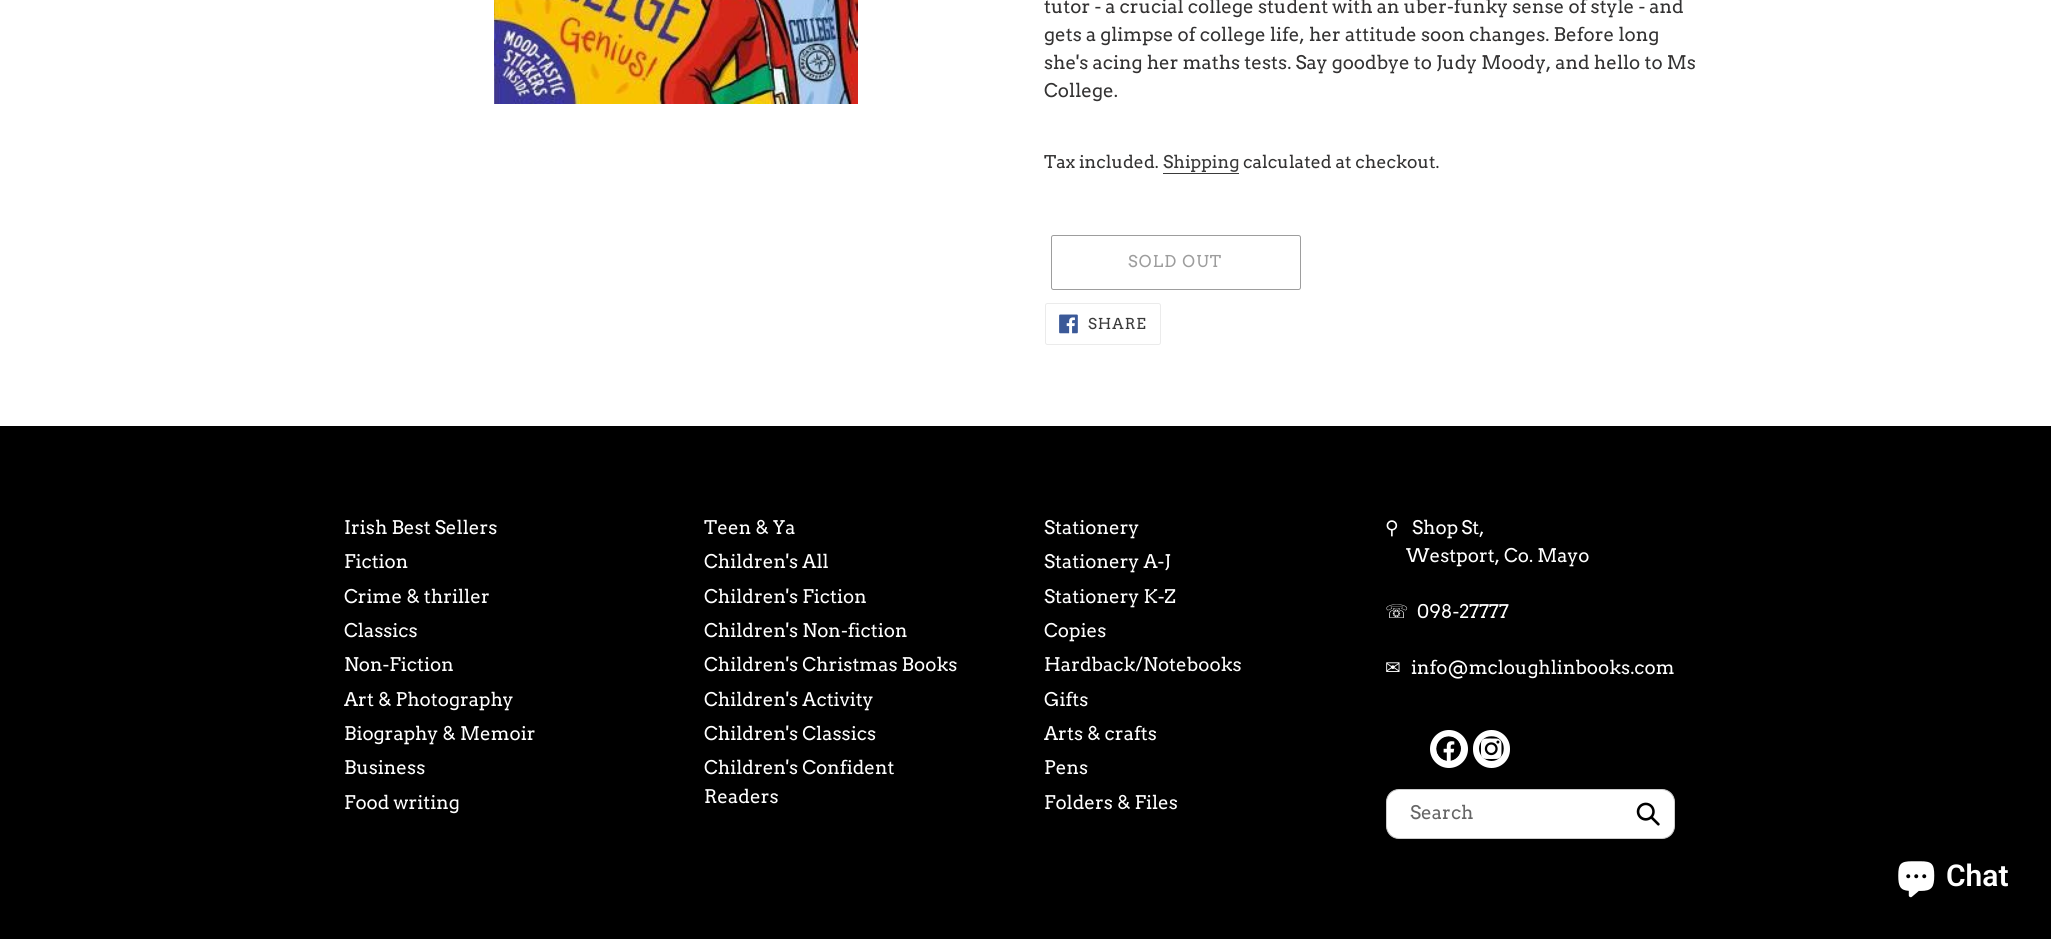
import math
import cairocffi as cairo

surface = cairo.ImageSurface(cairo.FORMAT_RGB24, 2051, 939)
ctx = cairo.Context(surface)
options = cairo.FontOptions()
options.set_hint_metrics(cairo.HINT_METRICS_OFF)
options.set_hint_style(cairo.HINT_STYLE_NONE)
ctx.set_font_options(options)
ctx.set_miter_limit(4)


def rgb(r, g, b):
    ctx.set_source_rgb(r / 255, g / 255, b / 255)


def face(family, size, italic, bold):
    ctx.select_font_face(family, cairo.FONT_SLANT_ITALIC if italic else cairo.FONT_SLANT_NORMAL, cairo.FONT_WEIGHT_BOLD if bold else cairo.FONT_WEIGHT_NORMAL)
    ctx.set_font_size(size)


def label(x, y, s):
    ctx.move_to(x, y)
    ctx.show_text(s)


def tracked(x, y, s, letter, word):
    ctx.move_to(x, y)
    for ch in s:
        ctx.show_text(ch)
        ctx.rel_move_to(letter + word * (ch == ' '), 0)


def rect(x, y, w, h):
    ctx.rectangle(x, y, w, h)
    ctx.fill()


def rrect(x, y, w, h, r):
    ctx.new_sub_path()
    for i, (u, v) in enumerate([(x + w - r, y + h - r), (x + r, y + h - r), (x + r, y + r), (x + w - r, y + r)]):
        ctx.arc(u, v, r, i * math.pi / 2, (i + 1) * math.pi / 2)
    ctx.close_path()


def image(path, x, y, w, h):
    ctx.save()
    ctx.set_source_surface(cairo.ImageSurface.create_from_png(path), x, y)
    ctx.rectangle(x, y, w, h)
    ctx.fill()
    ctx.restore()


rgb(255, 255, 255)
ctx.paint()
image('image0.png', 494, 0, 364, 104)
face('Arvo', 18.75, 0, 0)
rgb(51, 50, 50)
label(1044, 13, 'tutor - a crucial college student with an uber-funky sense of style - and')
label(1044, 41, 'gets a glimpse of college life, her attitude soon changes. Before long')
label(1044, 69, 'she\'s acing her maths tests. Say goodbye to Judy Moody, and hello to Ms')
label(1044, 97, 'College.')
face('Arvo', 17.5, 0, 0)
label(1044, 168, 'Tax included.')
rgb(58, 58, 58)
label(1163, 168, 'Shipping')
rect(1163, 173, 76, 1)
rgb(51, 50, 50)
label(1243, 168, 'calculated at checkout.')
rrect(1051.5, 235.5, 249, 54, 2)
rgb(157, 157, 157)
ctx.set_line_width(1)
ctx.stroke()
face('Arvo', 16.25, 0, 0)
tracked(1128, 267, 'SOLD OUT', 1.25, 0)
rrect(1045.5, 303.5, 115, 41, 2)
rgb(235, 235, 235)
ctx.stroke()
image('image1.png', 1059, 314, 19, 20)
face('Arvo', 15, 0, 0)
rgb(58, 58, 58)
tracked(1088, 329, 'SHARE', 1, 0)
rgb(0, 0, 0)
rect(0, 426, 2051, 513)
face('Arvo', 18.75, 0, 0)
rgb(255, 255, 255)
label(344, 534, 'Irish Best Sellers')
label(344, 568, 'Fiction')
label(344, 603, 'Crime & thriller')
label(344, 637, 'Classics')
label(344, 671, 'Non-Fiction')
label(344, 706, 'Art & Photography')
label(344, 740, 'Biography & Memoir')
label(344, 774, 'Business')
label(344, 809, 'Food writing')
label(704, 534, 'Teen & Ya')
label(704, 568, 'Children\'s All')
label(704, 603, 'Children\'s Fiction')
label(704, 637, 'Children\'s Non-fiction')
label(704, 671, 'Children\'s Christmas Books')
label(704, 706, 'Children\'s Activity')
label(704, 740, 'Children\'s Classics')
label(704, 774, 'Children\'s Confident')
label(704, 803, 'Readers')
label(1044, 534, 'Stationery')
label(1044, 568, 'Stationery A-J')
label(1044, 603, 'Stationery K-Z')
label(1044, 637, 'Copies')
label(1044, 671, 'Hardback/Notebooks')
label(1044, 706, 'Gifts')
label(1044, 740, 'Arts & crafts')
label(1044, 774, 'Pens')
label(1044, 809, 'Folders & Files')
face('DejaVu Sans', 18.75, 0, 0)
label(1385, 534, '⚲')
face('Arvo', 18.75, 0, 0)
tracked(1412, 534, 'Shop St,', 0, -1)
label(1406, 562, 'Westport, Co. Mayo')
face('DejaVu Sans', 18.75, 0, 0)
label(1385, 618, '☏')
face('Arvo', 18.75, 0, 0)
label(1417, 618, '098-27777')
face('DejaVu Sans', 18.75, 0, 0)
label(1385, 674, '✉')
face('Arvo', 18.75, 0, 0)
label(1411, 674, 'info@mcloughlinbooks.com')
ctx.new_path()
ctx.arc(1449, 749, 19, 0, 2 * math.pi)
ctx.fill()
image('image2.png', 1436, 736, 25, 25)
rrect(1473, 730, 37, 38, 18.5)
ctx.fill()
image('image3.png', 1479, 736, 25, 25)
rrect(1386.5, 789.5, 288, 49, 12.5)
ctx.fill_preserve()
rgb(204, 204, 204)
ctx.stroke()
rgb(102, 102, 102)
label(1410, 819, 'Search')
image('image4.png', 1636, 802, 24, 24)
image('image5.png', 1898, 861, 37, 37)
face('Roboto SemiBold', 30, 0, 0)
rgb(255, 255, 255)
label(1946, 886, 'Chat')
surface.write_to_png('render.png')
